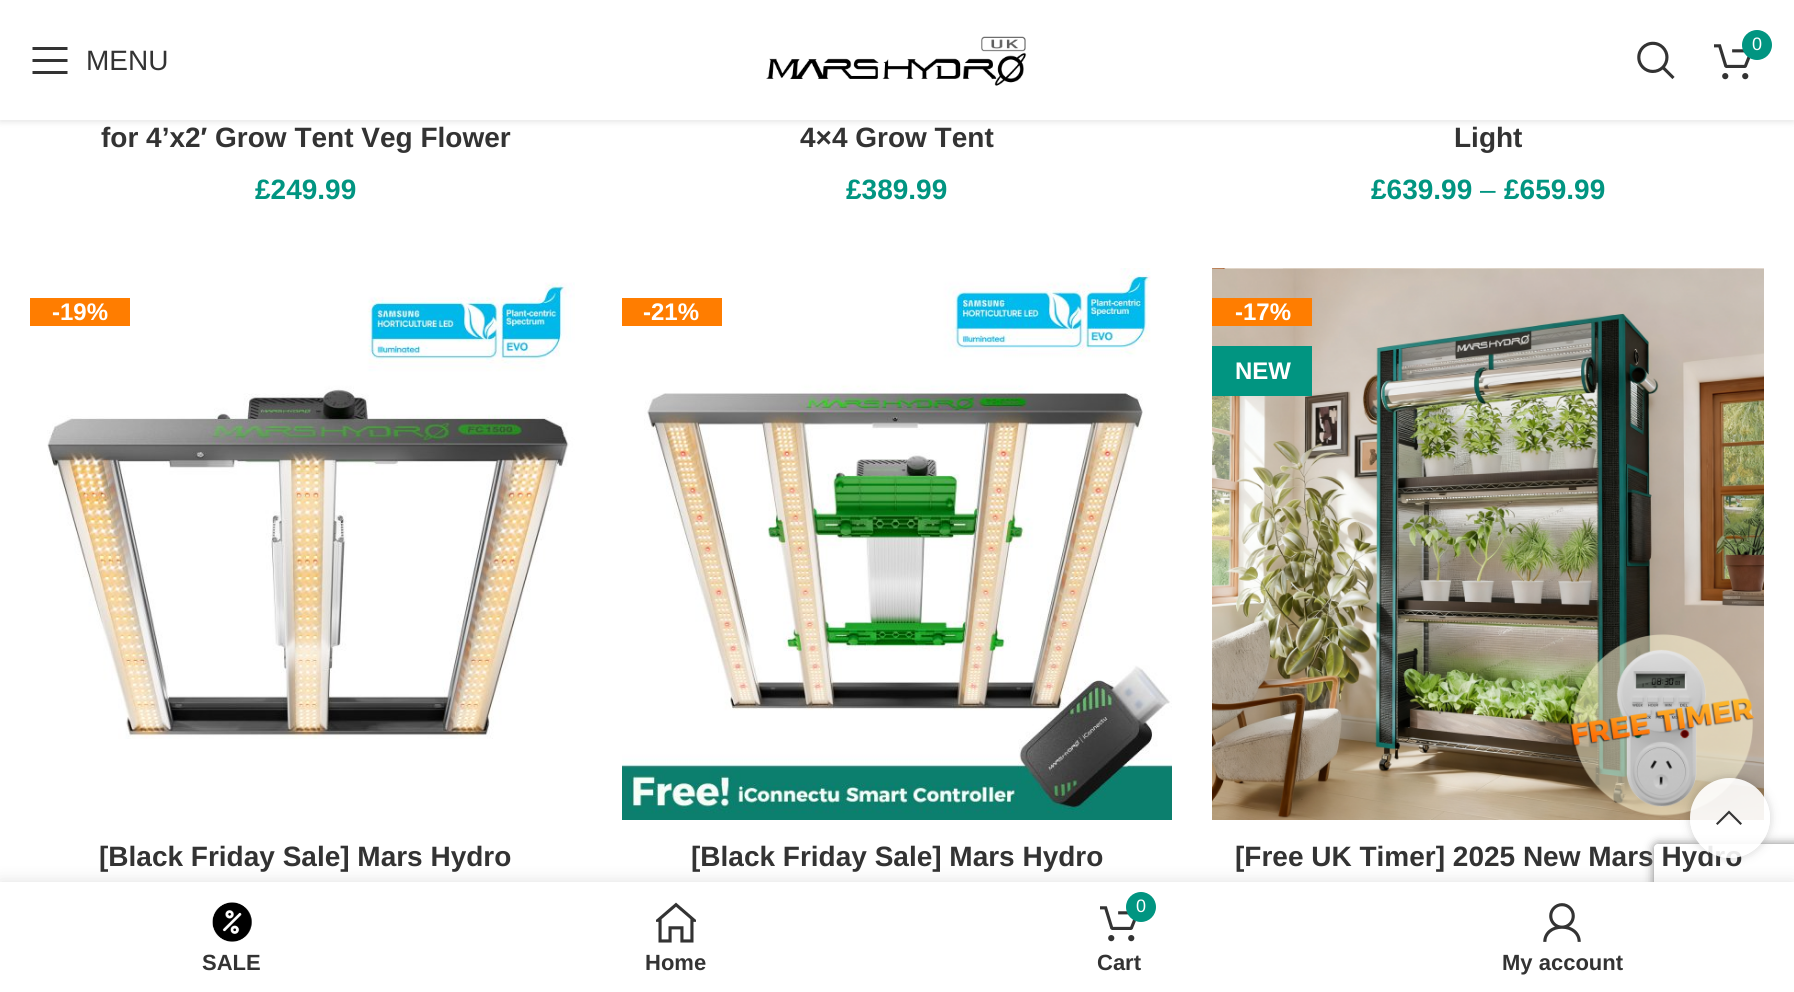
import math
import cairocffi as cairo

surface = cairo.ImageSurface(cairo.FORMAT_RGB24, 1794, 992)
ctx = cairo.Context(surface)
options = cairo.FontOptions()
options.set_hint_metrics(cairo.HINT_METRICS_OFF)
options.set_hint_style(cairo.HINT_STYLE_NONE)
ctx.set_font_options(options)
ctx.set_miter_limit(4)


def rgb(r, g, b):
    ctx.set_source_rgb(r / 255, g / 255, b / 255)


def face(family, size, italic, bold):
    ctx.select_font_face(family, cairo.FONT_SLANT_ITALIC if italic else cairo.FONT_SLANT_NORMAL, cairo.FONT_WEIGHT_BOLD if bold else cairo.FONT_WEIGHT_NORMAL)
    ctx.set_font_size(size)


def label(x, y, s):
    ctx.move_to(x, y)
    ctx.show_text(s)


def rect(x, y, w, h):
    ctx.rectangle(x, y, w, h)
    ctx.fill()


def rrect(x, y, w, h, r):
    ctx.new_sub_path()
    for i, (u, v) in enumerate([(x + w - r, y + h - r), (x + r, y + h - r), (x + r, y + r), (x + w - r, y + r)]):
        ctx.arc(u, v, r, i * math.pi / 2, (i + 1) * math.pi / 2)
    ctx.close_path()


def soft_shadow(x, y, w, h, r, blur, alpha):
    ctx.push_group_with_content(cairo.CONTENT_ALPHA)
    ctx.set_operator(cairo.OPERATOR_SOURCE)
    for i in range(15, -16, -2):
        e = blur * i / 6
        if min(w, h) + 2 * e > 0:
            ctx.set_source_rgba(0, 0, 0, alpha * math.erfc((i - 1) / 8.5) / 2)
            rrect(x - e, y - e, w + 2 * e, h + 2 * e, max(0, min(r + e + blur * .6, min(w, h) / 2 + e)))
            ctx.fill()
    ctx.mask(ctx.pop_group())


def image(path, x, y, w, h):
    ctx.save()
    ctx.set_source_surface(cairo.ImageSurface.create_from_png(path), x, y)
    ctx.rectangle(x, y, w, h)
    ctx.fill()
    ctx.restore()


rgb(255, 255, 255)
ctx.paint()
rgb(0, 0, 0)
soft_shadow(0, 2, 1794, 120, 0, 3, 0.1)
rgb(255, 255, 255)
rect(0, 0, 1794, 120)
image('image0.png', 766, 36, 261, 50)
image('image1.png', 1637, 41, 38, 38)
image('image2.png', 1714, 44, 37, 36)
rgb(1, 149, 129)
ctx.arc(1757, 45, 15, 0, 2 * math.pi)
ctx.fill()
face('Liberation Sans', 18, 0, 0)
rgb(255, 255, 255)
label(1752, 50, '0')
rgb(51, 51, 51)
ctx.new_path()
ctx.move_to(32.5, 50)
ctx.line_to(67.5, 50)
ctx.line_to(67.5, 47)
ctx.line_to(32.5, 47)
ctx.close_path()
ctx.move_to(32.5, 62)
ctx.line_to(67.5, 62)
ctx.line_to(67.5, 59)
ctx.line_to(32.5, 59)
ctx.close_path()
ctx.move_to(32.5, 74)
ctx.line_to(67.5, 74)
ctx.line_to(67.5, 71)
ctx.line_to(32.5, 71)
ctx.close_path()
ctx.fill()
face('Liberation Sans', 28, 0, 0)
label(86, 70, 'MENU')
face('Liberation Sans', 28, 0, 1)
label(101, 147, 'for 4’x2′ Grow Tent Veg Flower')
rgb(1, 149, 129)
label(255, 199, '£249.99')
rgb(51, 51, 51)
label(800, 147, '4×4 Grow Tent')
rgb(1, 149, 129)
label(846, 199, '£389.99')
rgb(51, 51, 51)
label(1454, 147, 'Light')
rgb(1, 149, 129)
label(1371, 199, '£639.99')
face('Liberation Sans', 28, 0, 0)
label(1480, 199, '–')
face('Liberation Sans', 28, 0, 1)
label(1504, 199, '£659.99')
image('image3.png', 47, 282, 528, 457)
rgb(255, 125, 0)
rect(30, 298, 100, 28)
face('Liberation Sans', 24, 0, 1)
rgb(255, 255, 255)
label(52, 320, '-19%')
face('Liberation Sans', 28, 0, 1)
rgb(51, 51, 51)
label(99, 866, '[Black Friday Sale] Mars Hydro')
image('image4.png', 622, 268, 550, 552)
rgb(255, 125, 0)
rect(622, 298, 100, 28)
face('Liberation Sans', 24, 0, 1)
rgb(255, 255, 255)
label(643, 320, '-21%')
face('Liberation Sans', 28, 0, 1)
rgb(51, 51, 51)
label(691, 866, '[Black Friday Sale] Mars Hydro')
image('image5.png', 1212, 268, 552, 552)
rgb(255, 125, 0)
rect(1212, 298, 100, 28)
face('Liberation Sans', 24, 0, 1)
rgb(255, 255, 255)
label(1235, 320, '-17%')
rgb(1, 149, 129)
rect(1212, 346, 100, 50)
rgb(255, 255, 255)
label(1235, 379, 'NEW')
face('Liberation Sans', 28, 0, 1)
rgb(51, 51, 51)
label(1235, 866, '[Free UK Timer] 2025 New Mars Hydro')
ctx.save()
ctx.set_fill_rule(cairo.FILL_RULE_EVEN_ODD)
ctx.new_path()
ctx.move_to(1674, 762)
ctx.line_to(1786, 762)
ctx.line_to(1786, 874)
ctx.line_to(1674, 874)
ctx.close_path()
ctx.move_to(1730, 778)
ctx.curve_to(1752, 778, 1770, 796, 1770, 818)
ctx.curve_to(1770, 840, 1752, 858, 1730, 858)
ctx.curve_to(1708, 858, 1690, 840, 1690, 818)
ctx.curve_to(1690, 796, 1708, 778, 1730, 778)
ctx.close_path()
ctx.clip()
rgb(0, 0, 0)
soft_shadow(1690, 778, 80, 80, 40, 5, 0.17)
ctx.restore()
ctx.save()
ctx.set_fill_rule(cairo.FILL_RULE_EVEN_ODD)
ctx.new_path()
ctx.move_to(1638, 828)
ctx.line_to(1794, 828)
ctx.line_to(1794, 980)
ctx.line_to(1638, 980)
ctx.close_path()
ctx.move_to(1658, 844)
ctx.line_to(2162, 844)
ctx.curve_to(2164, 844, 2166, 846, 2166, 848)
ctx.line_to(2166, 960)
ctx.curve_to(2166, 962, 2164, 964, 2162, 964)
ctx.line_to(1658, 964)
ctx.curve_to(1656, 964, 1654, 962, 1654, 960)
ctx.line_to(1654, 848)
ctx.curve_to(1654, 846, 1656, 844, 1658, 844)
ctx.close_path()
ctx.clip()
rgb(128, 128, 128)
soft_shadow(1654, 844, 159, 120, 4, 5, 1)
ctx.restore()
ctx.set_source_rgba(1, 1, 1, 0.9)
ctx.arc(1730, 818, 40, 0, 2 * math.pi)
ctx.fill()
rgb(51, 51, 51)
ctx.new_path()
ctx.move_to(1740.5, 825)
ctx.line_to(1742, 823.5)
ctx.line_to(1729, 810.5)
ctx.line_to(1716, 823.5)
ctx.line_to(1717.5, 825)
ctx.line_to(1729, 813.5)
ctx.close_path()
ctx.fill()
rgb(0, 0, 0)
soft_shadow(0, 882, 1794, 110, 0, 9, 0.12)
rgb(255, 255, 255)
rect(0, 882, 1794, 110)
image('image6.png', 212, 902, 40, 40)
face('Liberation Sans', 22, 0, 1)
rgb(51, 51, 51)
label(202, 970, 'SALE')
image('image7.png', 656, 902, 40, 41)
label(645, 970, 'Home')
image('image8.png', 1100, 906, 36, 36)
rgb(1, 149, 129)
ctx.arc(1141, 907, 15, 0, 2 * math.pi)
ctx.fill()
face('Liberation Sans', 18, 0, 0)
rgb(255, 255, 255)
label(1136, 912, '0')
face('Liberation Sans', 22, 0, 1)
rgb(51, 51, 51)
label(1097, 970, 'Cart')
image('image9.png', 1543, 903, 38, 39)
label(1502, 970, 'My account')
surface.write_to_png('render.png')
